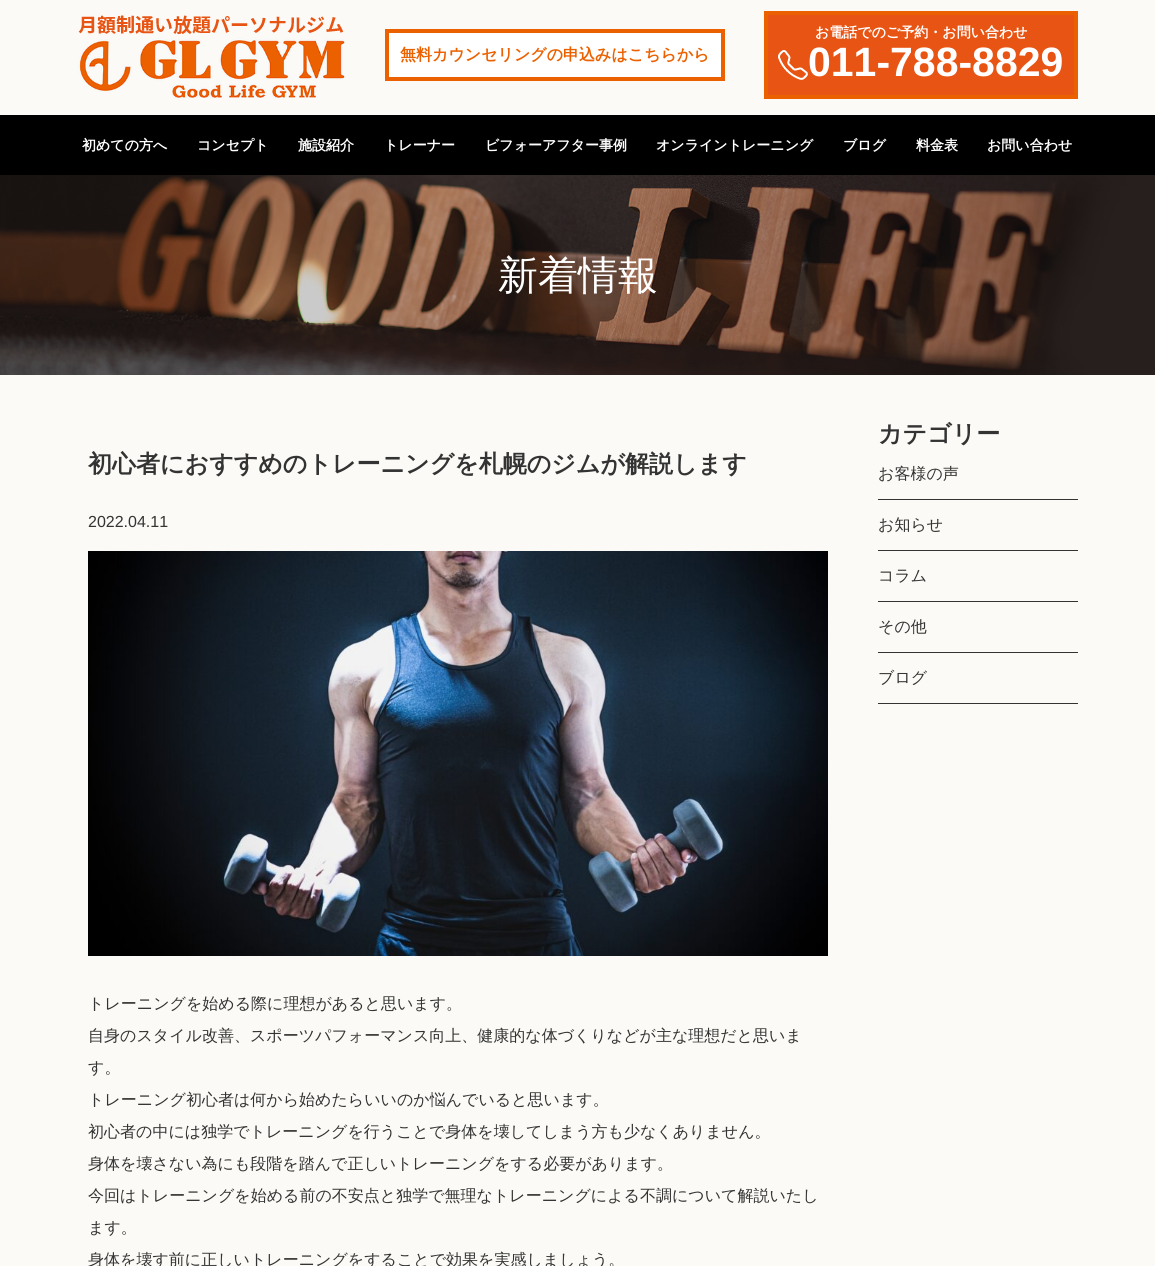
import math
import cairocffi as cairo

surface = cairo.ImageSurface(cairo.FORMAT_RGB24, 1155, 1266)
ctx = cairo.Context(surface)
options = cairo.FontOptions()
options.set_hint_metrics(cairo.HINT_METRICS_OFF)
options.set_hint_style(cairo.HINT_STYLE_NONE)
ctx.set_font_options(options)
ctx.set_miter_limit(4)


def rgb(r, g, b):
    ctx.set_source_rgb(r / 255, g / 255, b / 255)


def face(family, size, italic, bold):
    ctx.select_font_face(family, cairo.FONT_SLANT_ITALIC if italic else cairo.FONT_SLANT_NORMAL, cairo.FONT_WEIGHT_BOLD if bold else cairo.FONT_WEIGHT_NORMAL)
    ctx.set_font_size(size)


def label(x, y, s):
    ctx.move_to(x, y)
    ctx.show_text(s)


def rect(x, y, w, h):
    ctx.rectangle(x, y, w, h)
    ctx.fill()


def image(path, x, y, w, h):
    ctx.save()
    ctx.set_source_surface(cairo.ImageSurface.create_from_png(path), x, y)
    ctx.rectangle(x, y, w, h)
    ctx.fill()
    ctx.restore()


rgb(251, 250, 246)
ctx.paint()
image('image0.png', 78, 15, 268, 84)
rgb(255, 255, 255)
ctx.rectangle(387, 31, 336, 48)
ctx.fill_preserve()
rgb(235, 97, 0)
ctx.set_line_width(4)
ctx.stroke()
face('WenQuanYi Zen Hei', 16, 0, 1)
label(400, 60, '無料カウンセリングの申込みはこちらから')
rgb(232, 84, 19)
ctx.rectangle(766, 13, 310, 84)
ctx.fill_preserve()
rgb(235, 97, 0)
ctx.stroke()
face('WenQuanYi Zen Hei', 14, 0, 1)
rgb(255, 255, 255)
label(815, 37, 'お電話でのご予約・お問い合わせ')
image('image1.png', 778, 50, 30, 30)
face('Liberation Sans', 41, 0, 1)
label(808, 76, '011-788-8829')
rgb(0, 0, 0)
rect(0, 115, 1155, 60)
face('WenQuanYi Zen Hei', 14, 0, 1)
rgb(255, 255, 255)
label(82, 150, '初めての方へ')
label(197, 150, 'コンセプト')
label(298, 150, '施設紹介')
label(384, 150, 'トレーナー')
label(485, 150, 'ビフォーアフター事例')
label(656, 150, 'オンライントレーニング')
label(843, 150, 'ブログ')
label(916, 150, '料金表')
label(987, 150, 'お問い合わせ')
image('image2.png', 0, 175, 1155, 200)
face('WenQuanYi Zen Hei Medium', 40, 0, 0)
label(498, 289, '新着情報')
face('WenQuanYi Zen Hei', 24, 0, 1)
rgb(51, 51, 51)
label(88, 472, '初心者におすすめのトレーニングを札幌のジムが解説します')
face('Liberation Sans', 16, 0, 0)
label(88, 527, '2022.04.11')
image('image3.png', 88, 551, 740, 405)
face('WenQuanYi Zen Hei Medium', 16, 0, 0)
label(88, 1009, 'トレーニングを始める際に理想があると思います。')
label(88, 1041, '自身のスタイル改善、スポーツパフォーマンス向上、健康的な体づくりなどが主な理想だと思いま')
label(88, 1073, 'す。')
label(88, 1105, 'トレーニング初心者は何から始めたらいいのか悩んでいると思います。')
label(88, 1137, '初心者の中には独学でトレーニングを行うことで身体を壊してしまう方も少なくありません。')
label(88, 1169, '身体を壊さない為にも段階を踏んで正しいトレーニングをする必要があります。')
label(88, 1201, '今回はトレーニングを始める前の不安点と独学で無理なトレーニングによる不調について解説いたし')
label(88, 1233, 'ます。')
label(88, 1265, '身体を壊す前に正しいトレーニングをすることで効果を実感しましょう。')
face('WenQuanYi Zen Hei', 24, 0, 1)
label(878, 442, 'カテゴリー')
rect(878, 499, 200, 1)
face('WenQuanYi Zen Hei Medium', 16, 0, 0)
label(878, 479, 'お客様の声')
rect(878, 550, 200, 1)
label(878, 530, 'お知らせ')
rect(878, 601, 200, 1)
label(878, 581, 'コラム')
rect(878, 652, 200, 1)
label(878, 632, 'その他')
rect(878, 703, 200, 1)
label(878, 683, 'ブログ')
surface.write_to_png('render.png')
